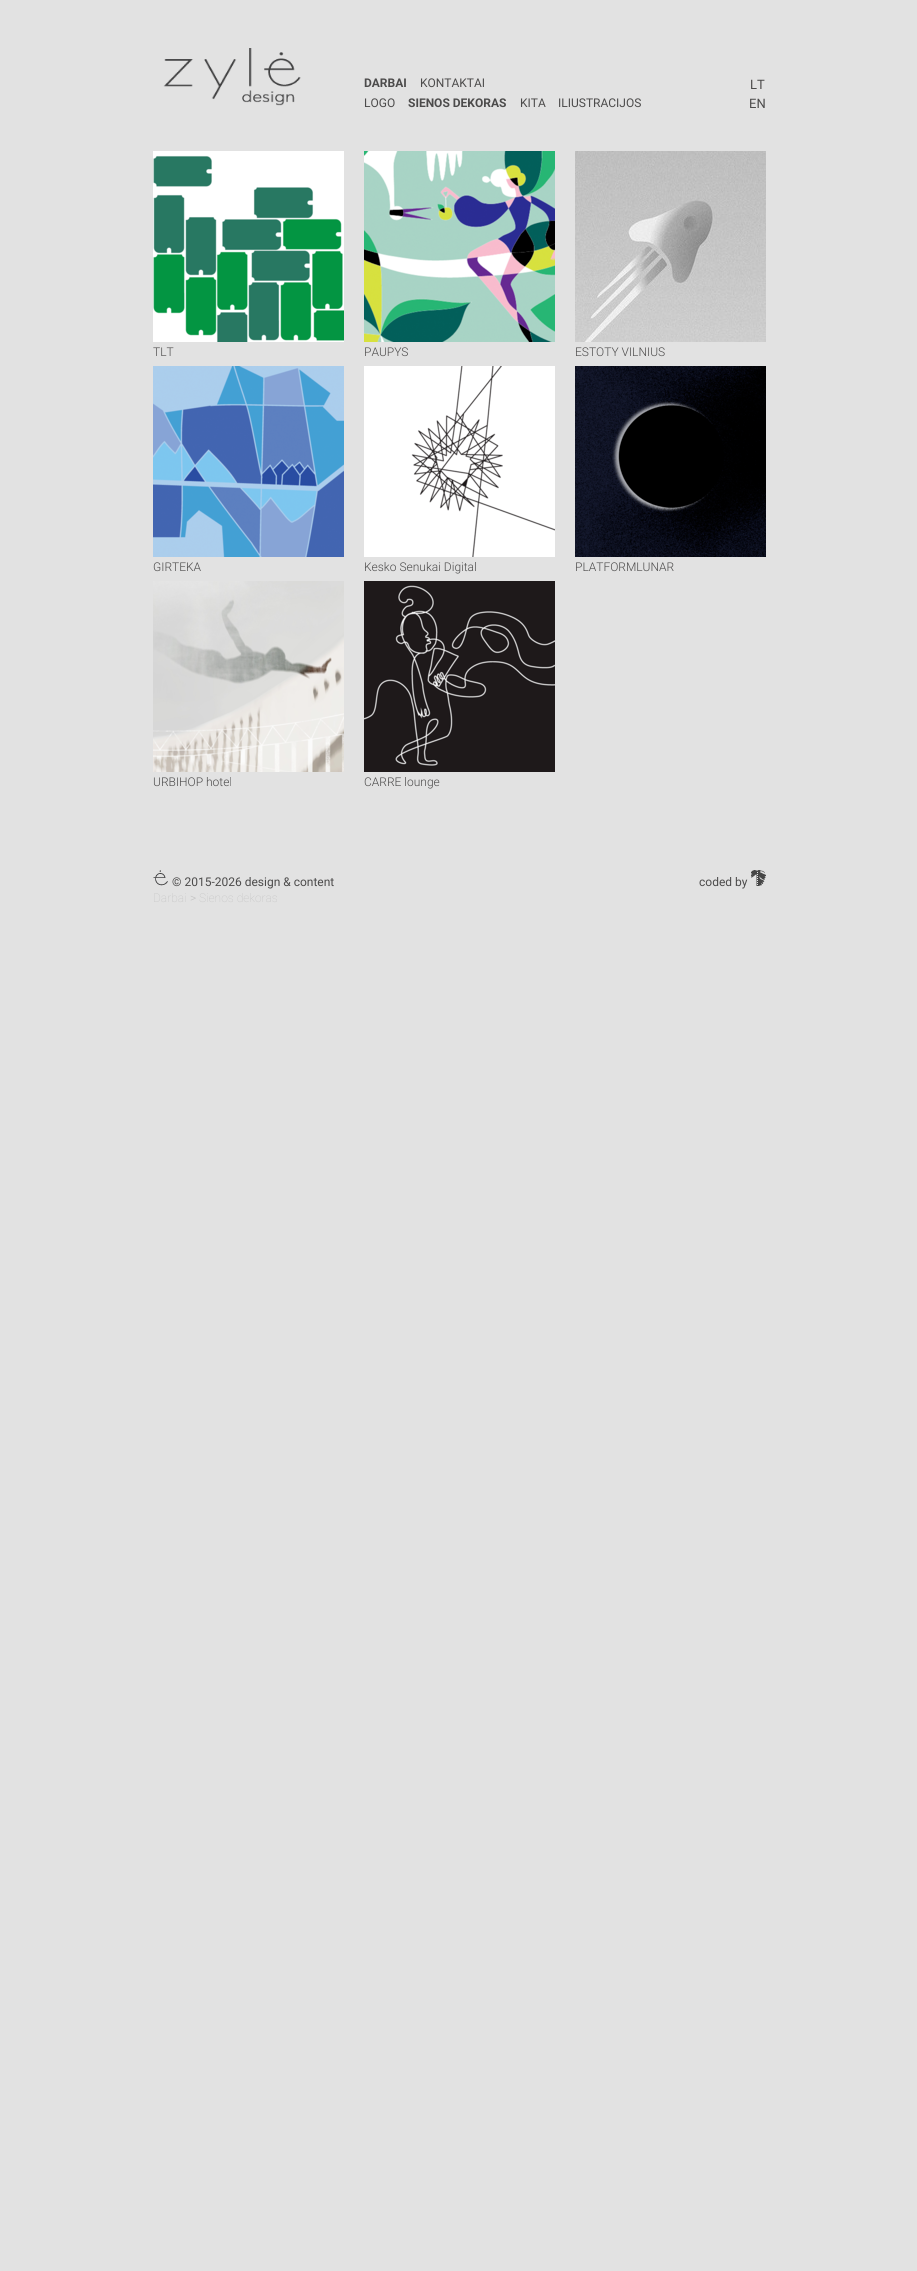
import math
import cairocffi as cairo

surface = cairo.ImageSurface(cairo.FORMAT_RGB24, 917, 2271)
ctx = cairo.Context(surface)
options = cairo.FontOptions()
options.set_hint_metrics(cairo.HINT_METRICS_OFF)
options.set_hint_style(cairo.HINT_STYLE_NONE)
ctx.set_font_options(options)
ctx.set_miter_limit(4)


def rgb(r, g, b):
    ctx.set_source_rgb(r / 255, g / 255, b / 255)


def face(family, size, italic, bold):
    ctx.select_font_face(family, cairo.FONT_SLANT_ITALIC if italic else cairo.FONT_SLANT_NORMAL, cairo.FONT_WEIGHT_BOLD if bold else cairo.FONT_WEIGHT_NORMAL)
    ctx.set_font_size(size)


def label(x, y, s):
    ctx.move_to(x, y)
    ctx.show_text(s)


def image(path, x, y, w, h):
    ctx.save()
    ctx.set_source_surface(cairo.ImageSurface.create_from_png(path), x, y)
    ctx.rectangle(x, y, w, h)
    ctx.fill()
    ctx.restore()


rgb(226, 226, 226)
ctx.paint()
image('image0.png', 163, 48, 138, 58)
face('Roboto', 12, 0, 1)
rgb(76, 75, 75)
label(364, 87, 'DARBAI')
face('Roboto', 12, 0, 0)
label(420, 87, 'KONTAKTAI')
label(364, 107, 'LOGO')
face('Roboto', 12, 0, 1)
label(408, 107, 'SIENOS DEKORAS')
face('Roboto', 12, 0, 0)
label(520, 107, 'KITA')
label(558, 107, 'ILIUSTRACIJOS')
face('Roboto', 13, 0, 0)
label(750, 89, 'LT')
label(749, 108, 'EN')
image('image1.png', 153, 151, 191, 191)
face('Roboto Light', 12, 0, 0)
label(153, 356, 'TLT')
image('image2.png', 364, 151, 191, 191)
label(364, 356, 'PAUPYS')
image('image3.png', 575, 151, 191, 191)
label(575, 356, 'ESTOTY VILNIUS')
image('image4.png', 153, 366, 191, 191)
label(153, 571, 'GIRTEKA')
image('image5.png', 364, 366, 191, 191)
label(364, 571, 'Kesko Senukai Digital')
image('image6.png', 575, 366, 191, 191)
label(575, 571, 'PLATFORMLUNAR')
image('image7.png', 153, 581, 191, 191)
label(153, 786, 'URBIHOP hotel')
image('image8.png', 364, 581, 191, 191)
label(364, 786, 'CARRE lounge')
image('image9.png', 153, 870, 15, 16)
face('Roboto', 12, 0, 0)
label(172, 886, '© 2015-2026 design & content')
label(699, 886, 'coded by')
image('image10.png', 751, 870, 15, 16)
face('Roboto Thin', 12, 0, 0)
rgb(194, 194, 194)
label(153, 902, 'Darbai')
face('Roboto Light', 12, 0, 0)
label(190, 902, '>')
face('Roboto Thin', 12, 0, 0)
label(199, 902, 'Sienos dekoras')
surface.write_to_png('render.png')
